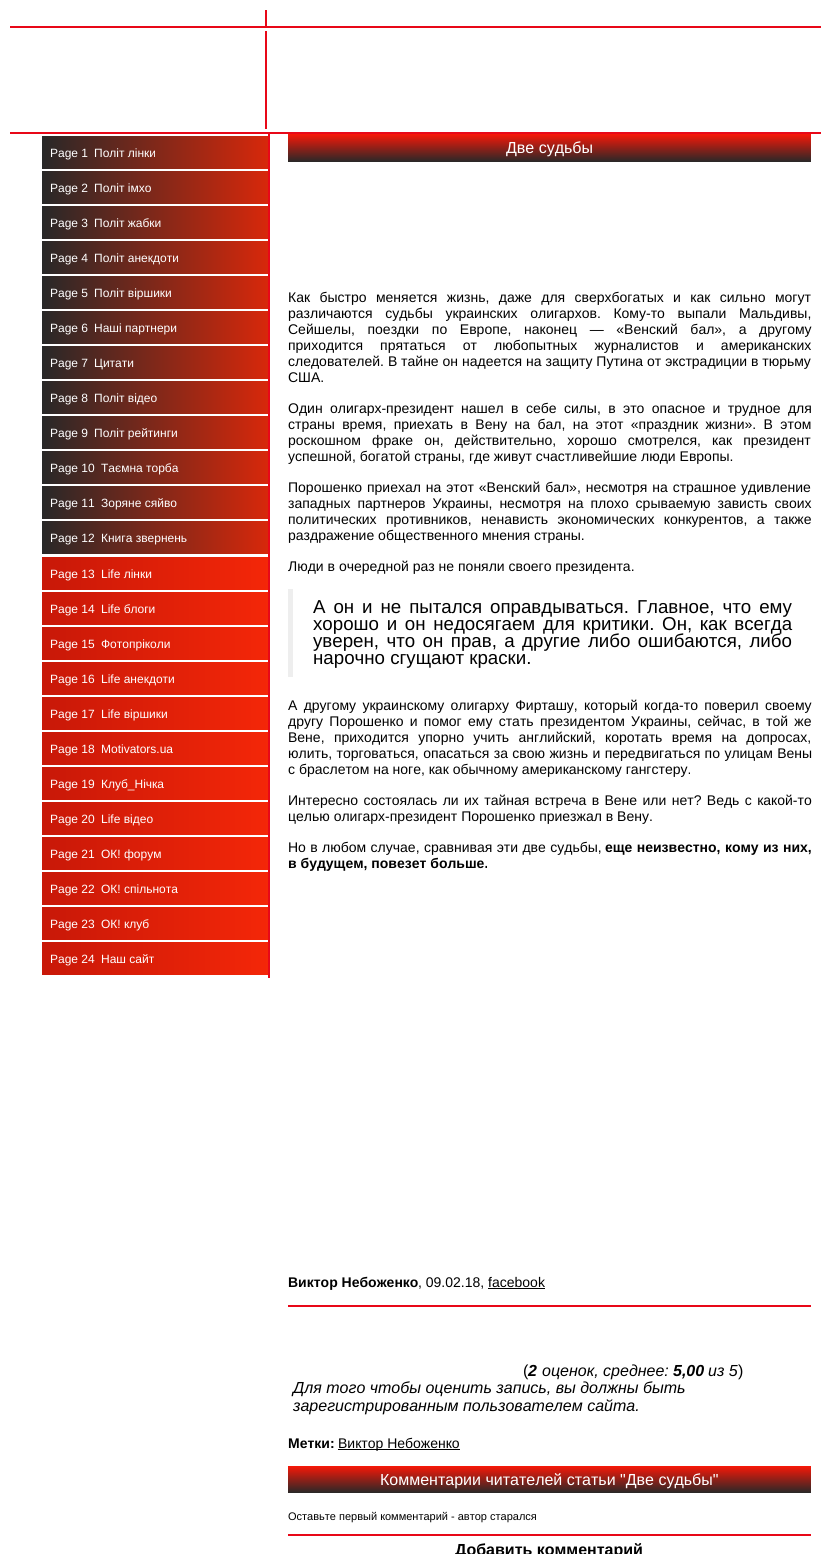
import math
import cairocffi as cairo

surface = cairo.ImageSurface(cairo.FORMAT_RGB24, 831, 1554)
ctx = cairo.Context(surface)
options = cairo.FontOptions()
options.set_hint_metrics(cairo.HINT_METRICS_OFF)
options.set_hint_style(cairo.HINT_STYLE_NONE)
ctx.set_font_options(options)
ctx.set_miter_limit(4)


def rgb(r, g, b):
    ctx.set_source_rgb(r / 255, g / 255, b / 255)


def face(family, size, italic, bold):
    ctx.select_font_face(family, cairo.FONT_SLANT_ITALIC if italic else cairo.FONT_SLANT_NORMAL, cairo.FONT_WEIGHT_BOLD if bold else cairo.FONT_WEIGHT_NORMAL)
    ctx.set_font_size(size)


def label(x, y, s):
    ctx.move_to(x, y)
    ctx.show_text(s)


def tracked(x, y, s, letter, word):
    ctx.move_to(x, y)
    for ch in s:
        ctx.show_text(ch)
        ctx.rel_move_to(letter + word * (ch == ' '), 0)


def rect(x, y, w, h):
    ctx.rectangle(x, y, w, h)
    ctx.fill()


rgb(255, 255, 255)
ctx.paint()
rgb(232, 8, 24)
rect(10, 26, 811, 2)
rect(265, 10, 2, 16)
rect(10, 132, 811, 2)
rect(265, 31, 2, 98)
rect(268, 134, 2, 844)
gradient = cairo.LinearGradient(42, 153, 290, 153)
gradient.add_color_stop_rgba(0, 0.157, 0.157, 0.157, 1)
gradient.add_color_stop_rgba(1, 0.91, 0.157, 0.031, 1)
ctx.set_source(gradient)
rect(42, 136, 226, 33)
face('Liberation Sans', 12, 0, 0)
rgb(255, 255, 255)
label(50, 157, 'Page 1')
label(94, 157, 'Політ лінки')
gradient = cairo.LinearGradient(42, 188, 290, 188)
gradient.add_color_stop_rgba(0, 0.157, 0.157, 0.157, 1)
gradient.add_color_stop_rgba(1, 0.91, 0.157, 0.031, 1)
ctx.set_source(gradient)
rect(42, 171, 226, 33)
rgb(255, 255, 255)
label(50, 192, 'Page 2')
label(94, 192, 'Політ імхо')
gradient = cairo.LinearGradient(42, 223, 290, 223)
gradient.add_color_stop_rgba(0, 0.157, 0.157, 0.157, 1)
gradient.add_color_stop_rgba(1, 0.91, 0.157, 0.031, 1)
ctx.set_source(gradient)
rect(42, 206, 226, 33)
rgb(255, 255, 255)
label(50, 227, 'Page 3')
label(94, 227, 'Політ жабки')
gradient = cairo.LinearGradient(42, 258, 290, 258)
gradient.add_color_stop_rgba(0, 0.157, 0.157, 0.157, 1)
gradient.add_color_stop_rgba(1, 0.91, 0.157, 0.031, 1)
ctx.set_source(gradient)
rect(42, 241, 226, 33)
rgb(255, 255, 255)
label(50, 262, 'Page 4')
label(94, 262, 'Політ анекдоти')
gradient = cairo.LinearGradient(42, 293, 290, 293)
gradient.add_color_stop_rgba(0, 0.157, 0.157, 0.157, 1)
gradient.add_color_stop_rgba(1, 0.91, 0.157, 0.031, 1)
ctx.set_source(gradient)
rect(42, 276, 226, 33)
rgb(255, 255, 255)
label(50, 297, 'Page 5')
label(94, 297, 'Політ віршики')
gradient = cairo.LinearGradient(42, 328, 290, 328)
gradient.add_color_stop_rgba(0, 0.157, 0.157, 0.157, 1)
gradient.add_color_stop_rgba(1, 0.91, 0.157, 0.031, 1)
ctx.set_source(gradient)
rect(42, 311, 226, 33)
rgb(255, 255, 255)
label(50, 332, 'Page 6')
label(94, 332, 'Наші партнери')
gradient = cairo.LinearGradient(42, 363, 290, 363)
gradient.add_color_stop_rgba(0, 0.157, 0.157, 0.157, 1)
gradient.add_color_stop_rgba(1, 0.91, 0.157, 0.031, 1)
ctx.set_source(gradient)
rect(42, 346, 226, 33)
rgb(255, 255, 255)
label(50, 367, 'Page 7')
label(94, 367, 'Цитати')
gradient = cairo.LinearGradient(42, 398, 290, 398)
gradient.add_color_stop_rgba(0, 0.157, 0.157, 0.157, 1)
gradient.add_color_stop_rgba(1, 0.91, 0.157, 0.031, 1)
ctx.set_source(gradient)
rect(42, 381, 226, 33)
rgb(255, 255, 255)
label(50, 402, 'Page 8')
label(94, 402, 'Політ відео')
gradient = cairo.LinearGradient(42, 433, 290, 433)
gradient.add_color_stop_rgba(0, 0.157, 0.157, 0.157, 1)
gradient.add_color_stop_rgba(1, 0.91, 0.157, 0.031, 1)
ctx.set_source(gradient)
rect(42, 416, 226, 33)
rgb(255, 255, 255)
label(50, 437, 'Page 9')
label(94, 437, 'Політ рейтинги')
gradient = cairo.LinearGradient(42, 468, 290, 468)
gradient.add_color_stop_rgba(0, 0.157, 0.157, 0.157, 1)
gradient.add_color_stop_rgba(1, 0.91, 0.157, 0.031, 1)
ctx.set_source(gradient)
rect(42, 451, 226, 33)
rgb(255, 255, 255)
label(50, 472, 'Page 10')
label(101, 472, 'Таємна торба')
gradient = cairo.LinearGradient(42, 503, 290, 503)
gradient.add_color_stop_rgba(0, 0.157, 0.157, 0.157, 1)
gradient.add_color_stop_rgba(1, 0.91, 0.157, 0.031, 1)
ctx.set_source(gradient)
rect(42, 486, 226, 33)
rgb(255, 255, 255)
label(50, 507, 'Page 11')
label(101, 507, 'Зоряне сяйво')
gradient = cairo.LinearGradient(42, 538, 290, 538)
gradient.add_color_stop_rgba(0, 0.157, 0.157, 0.157, 1)
gradient.add_color_stop_rgba(1, 0.91, 0.157, 0.031, 1)
ctx.set_source(gradient)
rect(42, 521, 226, 33)
rgb(255, 255, 255)
label(50, 542, 'Page 12')
label(101, 542, 'Книга звернень')
gradient = cairo.LinearGradient(42, 574, 290, 574)
gradient.add_color_stop_rgba(0, 0.784, 0.094, 0.031, 1)
gradient.add_color_stop_rgba(1, 0.973, 0.157, 0.031, 1)
ctx.set_source(gradient)
rect(42, 557, 226, 33)
rgb(255, 255, 255)
label(50, 578, 'Page 13')
label(101, 578, 'Life лінки')
gradient = cairo.LinearGradient(42, 609, 290, 609)
gradient.add_color_stop_rgba(0, 0.784, 0.094, 0.031, 1)
gradient.add_color_stop_rgba(1, 0.973, 0.157, 0.031, 1)
ctx.set_source(gradient)
rect(42, 592, 226, 33)
rgb(255, 255, 255)
label(50, 613, 'Page 14')
label(101, 613, 'Life блоги')
gradient = cairo.LinearGradient(42, 644, 290, 644)
gradient.add_color_stop_rgba(0, 0.784, 0.094, 0.031, 1)
gradient.add_color_stop_rgba(1, 0.973, 0.157, 0.031, 1)
ctx.set_source(gradient)
rect(42, 627, 226, 33)
rgb(255, 255, 255)
label(50, 648, 'Page 15')
label(101, 648, 'Фотопріколи')
gradient = cairo.LinearGradient(42, 679, 290, 679)
gradient.add_color_stop_rgba(0, 0.784, 0.094, 0.031, 1)
gradient.add_color_stop_rgba(1, 0.973, 0.157, 0.031, 1)
ctx.set_source(gradient)
rect(42, 662, 226, 33)
rgb(255, 255, 255)
label(50, 683, 'Page 16')
label(101, 683, 'Life анекдоти')
gradient = cairo.LinearGradient(42, 714, 290, 714)
gradient.add_color_stop_rgba(0, 0.784, 0.094, 0.031, 1)
gradient.add_color_stop_rgba(1, 0.973, 0.157, 0.031, 1)
ctx.set_source(gradient)
rect(42, 697, 226, 33)
rgb(255, 255, 255)
label(50, 718, 'Page 17')
label(101, 718, 'Life віршики')
gradient = cairo.LinearGradient(42, 749, 290, 749)
gradient.add_color_stop_rgba(0, 0.784, 0.094, 0.031, 1)
gradient.add_color_stop_rgba(1, 0.973, 0.157, 0.031, 1)
ctx.set_source(gradient)
rect(42, 732, 226, 33)
rgb(255, 255, 255)
label(50, 753, 'Page 18')
label(101, 753, 'Motivators.ua')
gradient = cairo.LinearGradient(42, 784, 290, 784)
gradient.add_color_stop_rgba(0, 0.784, 0.094, 0.031, 1)
gradient.add_color_stop_rgba(1, 0.973, 0.157, 0.031, 1)
ctx.set_source(gradient)
rect(42, 767, 226, 33)
rgb(255, 255, 255)
label(50, 788, 'Page 19')
label(101, 788, 'Клуб_Нічка')
gradient = cairo.LinearGradient(42, 819, 290, 819)
gradient.add_color_stop_rgba(0, 0.784, 0.094, 0.031, 1)
gradient.add_color_stop_rgba(1, 0.973, 0.157, 0.031, 1)
ctx.set_source(gradient)
rect(42, 802, 226, 33)
rgb(255, 255, 255)
label(50, 823, 'Page 20')
label(101, 823, 'Life відео')
gradient = cairo.LinearGradient(42, 854, 290, 854)
gradient.add_color_stop_rgba(0, 0.784, 0.094, 0.031, 1)
gradient.add_color_stop_rgba(1, 0.973, 0.157, 0.031, 1)
ctx.set_source(gradient)
rect(42, 837, 226, 33)
rgb(255, 255, 255)
label(50, 858, 'Page 21')
label(101, 858, 'ОК! форум')
gradient = cairo.LinearGradient(42, 889, 290, 889)
gradient.add_color_stop_rgba(0, 0.784, 0.094, 0.031, 1)
gradient.add_color_stop_rgba(1, 0.973, 0.157, 0.031, 1)
ctx.set_source(gradient)
rect(42, 872, 226, 33)
rgb(255, 255, 255)
label(50, 893, 'Page 22')
label(101, 893, 'ОК! спільнота')
gradient = cairo.LinearGradient(42, 924, 290, 924)
gradient.add_color_stop_rgba(0, 0.784, 0.094, 0.031, 1)
gradient.add_color_stop_rgba(1, 0.973, 0.157, 0.031, 1)
ctx.set_source(gradient)
rect(42, 907, 226, 33)
rgb(255, 255, 255)
label(50, 928, 'Page 23')
label(101, 928, 'ОК! клуб')
gradient = cairo.LinearGradient(42, 959, 290, 959)
gradient.add_color_stop_rgba(0, 0.784, 0.094, 0.031, 1)
gradient.add_color_stop_rgba(1, 0.973, 0.157, 0.031, 1)
ctx.set_source(gradient)
rect(42, 942, 226, 33)
rgb(255, 255, 255)
label(50, 963, 'Page 24')
label(101, 963, 'Наш сайт')
gradient = cairo.LinearGradient(550, 134, 550, 162)
gradient.add_color_stop_rgba(0, 0.973, 0.094, 0.031, 1)
gradient.add_color_stop_rgba(1, 0.157, 0.157, 0.157, 1)
ctx.set_source(gradient)
rect(288, 134, 523, 28)
face('Liberation Sans', 16, 0, 0)
rgb(255, 255, 255)
label(506, 153, 'Две судьбы')
face('Liberation Sans', 14, 0, 0)
rgb(0, 0, 0)
tracked(288, 302, 'Как быстро меняется жизнь, даже для сверхбогатых и как сильно могут', 0, 5.5)
tracked(288, 318, 'различаются судьбы украинских олигархов. Кому-то выпали Мальдивы,', 0, 8.75)
tracked(288, 334, 'Сейшелы, поездки по Европе, наконец — «Венский бал», а другому', 0, 8.75)
tracked(288, 350, 'приходится прятаться от любопытных журналистов и американских', 0, 13.25)
label(288, 366, 'следователей. В тайне он надеется на защиту Путина от экстрадиции в тюрьму')
label(288, 382, 'США.')
tracked(288, 413, 'Один олигарх-президент нашел в себе силы, в это опасное и трудное для', 0, 3.5)
tracked(288, 429, 'страны время, приехать в Вену на бал, на этот «праздник жизни». В этом', 0, 3.5)
tracked(288, 445, 'роскошном фраке он, действительно, хорошо смотрелся, как президент', 0, 7.25)
label(288, 461, 'успешной, богатой страны, где живут счастливейшие люди Европы.')
tracked(288, 492, 'Порошенко приехал на этот «Венский бал», несмотря на страшное удивление', 0, 1)
tracked(288, 508, 'западных партнеров Украины, несмотря на плохо срываемую зависть своих', 0, 3)
tracked(288, 524, 'политических противников, ненависть экономических конкурентов, а также', 0, 5.5)
label(288, 540, 'раздражение общественного мнения страны.')
label(288, 571, 'Люди в очередной раз не поняли своего президента.')
rgb(238, 238, 238)
rect(288, 589, 5, 88)
face('Liberation Sans', 18.7, 0, 0)
rgb(0, 0, 0)
tracked(313, 613, 'А он и не пытался оправдываться. Главное, что ему', 0, 2.75)
tracked(313, 630, 'хорошо и он недосягаем для критики. Он, как всегда', 0, 2.5)
tracked(313, 647, 'уверен, что он прав, а другие либо ошибаются, либо', 0, 2.25)
label(313, 664, 'нарочно сгущают краски.')
face('Liberation Sans', 14, 0, 0)
tracked(288, 710, 'А другому украинскому олигарху Фирташу, который когда-то поверил своему', 0, 2.4)
tracked(288, 726, 'другу Порошенко и помог ему стать президентом Украины, сейчас, в той же', 0, 2.4)
tracked(288, 742, 'Вене, приходится упорно учить английский, коротать время на допросах,', 0, 5.5)
tracked(288, 758, 'юлить, торговаться, опасаться за свою жизнь и передвигаться по улицам Вены', 0, 0.5)
label(288, 774, 'с браслетом на ноге, как обычному американскому гангстеру.')
tracked(288, 805, 'Интересно состоялась ли их тайная встреча в Вене или нет? Ведь с какой-то', 0, 1.5)
label(288, 821, 'целью олигарх-президент Порошенко приезжал в Вену.')
tracked(288, 852, 'Но в любом случае, сравнивая эти две судьбы,', 0, 0.5)
face('Liberation Sans', 14, 0, 1)
tracked(605, 852, 'еще неизвестно, кому из них,', 0, 0.5)
label(288, 868, 'в будущем, повезет больше.')
label(288, 1287, 'Виктор Небоженко')
face('Liberation Sans', 14, 0, 0)
label(418, 1287, ', 09.02.18, facebook')
rect(488, 1288, 57, 1)
rgb(232, 8, 24)
rect(288, 1305, 523, 2)
face('Liberation Sans', 16, 0, 0)
rgb(0, 0, 0)
label(523, 1376, '(')
face('Liberation Sans', 16, 1, 1)
label(528, 1376, '2')
face('Liberation Sans', 16, 1, 0)
label(542, 1376, 'оценок, среднее:')
face('Liberation Sans', 16, 1, 1)
label(673, 1376, '5,00')
face('Liberation Sans', 16, 1, 0)
label(708, 1376, 'из 5')
face('Liberation Sans', 16, 0, 0)
label(738, 1376, ')')
face('Liberation Sans', 16, 1, 0)
label(293, 1393, 'Для того чтобы оценить запись, вы должны быть')
label(293, 1411, 'зарегистрированным пользователем сайта.')
face('Liberation Sans', 14, 0, 1)
label(288, 1448, 'Метки:')
rect(338, 1449, 122, 1)
face('Liberation Sans', 14, 0, 0)
label(338, 1448, 'Виктор Небоженко')
gradient = cairo.LinearGradient(550, 1466, 550, 1493)
gradient.add_color_stop_rgba(0, 0.973, 0.094, 0.031, 1)
gradient.add_color_stop_rgba(1, 0.157, 0.157, 0.157, 1)
ctx.set_source(gradient)
rect(288, 1466, 523, 27)
face('Liberation Sans', 16, 0, 0)
rgb(255, 255, 255)
label(380, 1485, 'Комментарии читателей статьи "Две судьбы"')
face('Liberation Sans', 11, 0, 0)
rgb(0, 0, 0)
label(288, 1520, 'Оставьте первый комментарий - автор старался')
rgb(232, 8, 24)
rect(288, 1534, 523, 2)
face('Liberation Sans', 16, 0, 1)
rgb(0, 0, 0)
label(455, 1555, 'Добавить комментарий')
surface.write_to_png('render.png')
